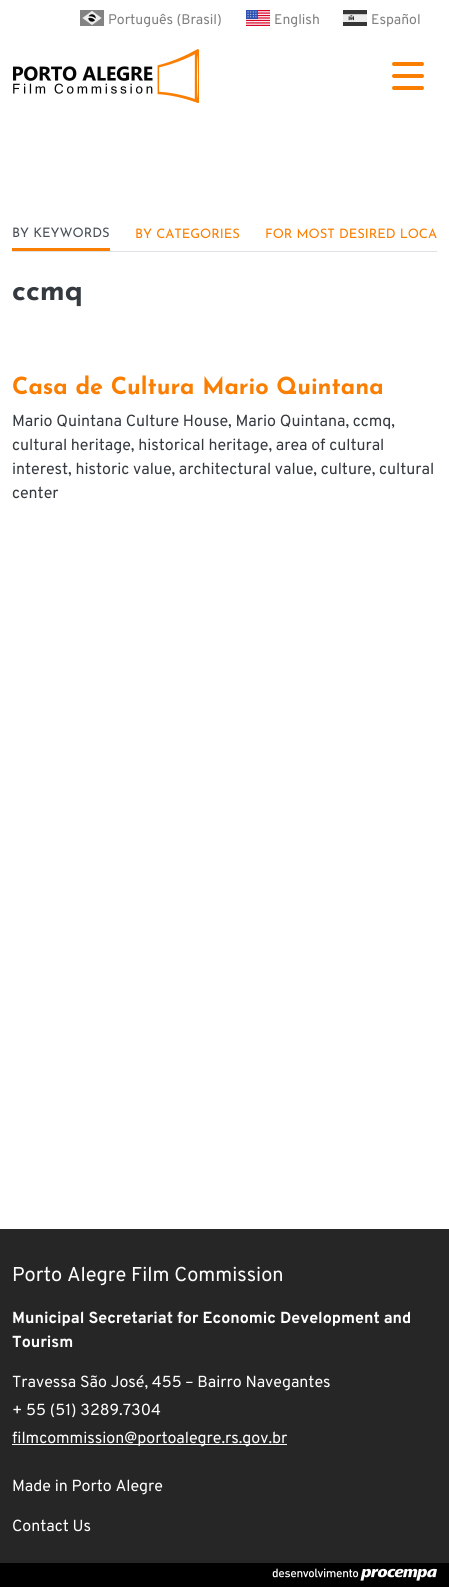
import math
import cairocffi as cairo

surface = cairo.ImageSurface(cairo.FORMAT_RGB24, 449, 1587)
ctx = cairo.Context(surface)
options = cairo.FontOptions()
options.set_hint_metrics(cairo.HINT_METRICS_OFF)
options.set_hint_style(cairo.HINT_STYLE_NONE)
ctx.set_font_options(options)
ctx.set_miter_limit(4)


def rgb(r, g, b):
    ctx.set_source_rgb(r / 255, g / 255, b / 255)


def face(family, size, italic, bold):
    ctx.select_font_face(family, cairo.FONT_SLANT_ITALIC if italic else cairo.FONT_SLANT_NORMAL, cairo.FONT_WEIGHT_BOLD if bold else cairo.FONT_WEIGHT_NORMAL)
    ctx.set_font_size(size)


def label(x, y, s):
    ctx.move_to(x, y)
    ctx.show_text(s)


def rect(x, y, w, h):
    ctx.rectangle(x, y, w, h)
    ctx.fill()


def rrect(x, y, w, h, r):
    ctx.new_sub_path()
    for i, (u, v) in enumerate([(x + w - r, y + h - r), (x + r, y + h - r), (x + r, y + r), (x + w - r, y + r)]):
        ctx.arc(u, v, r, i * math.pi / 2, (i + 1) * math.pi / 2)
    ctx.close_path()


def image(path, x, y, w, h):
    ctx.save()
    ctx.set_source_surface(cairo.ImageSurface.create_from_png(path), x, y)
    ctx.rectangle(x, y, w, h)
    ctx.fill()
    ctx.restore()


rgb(255, 255, 255)
ctx.paint()
image('image0.png', 80, 10, 24, 16)
face('Overpass', 14, 0, 0)
rgb(128, 128, 128)
label(108, 24, 'Português (Brasil)')
image('image1.png', 246, 10, 24, 16)
label(274, 24, 'English')
image('image2.png', 343, 10, 24, 16)
label(371, 24, 'Español')
image('image3.png', 13, 49, 186, 54)
rgb(250, 126, 1)
rrect(392, 74, 32, 4, 2)
ctx.fill()
rrect(392, 62, 32, 4, 2)
ctx.fill()
rrect(392, 86, 32, 4, 2)
ctx.fill()
rgb(222, 226, 230)
rect(12, 251, 425, 1)
rgb(250, 126, 1)
rect(12, 248, 98, 3)
face('Josefin Sans', 13, 0, 0)
rgb(73, 80, 87)
label(12, 237, 'BY KEYWORDS')
rgb(250, 126, 1)
label(135, 238, 'BY CATEGORIES')
label(265, 238, 'FOR MOST DESIRED LOCA')
face('Josefin Sans', 29, 0, 1)
rgb(52, 58, 64)
label(12, 300, 'ccmq')
face('Josefin Sans', 23.5, 0, 1)
rgb(250, 126, 1)
label(12, 394, 'Casa de Cultura Mario Quintana')
face('Overpass', 16, 0, 0)
rgb(52, 58, 64)
label(12, 426, 'Mario Quintana Culture House, Mario Quintana, ccmq,')
label(12, 450, 'cultural heritage, historical heritage, area of cultural')
label(12, 474, 'interest, historic value, architectural value, culture, cultural')
label(12, 498, 'center')
rgb(38, 38, 38)
rect(0, 1229, 449, 334)
face('Overpass', 20, 0, 0)
rgb(255, 255, 255)
label(12, 1281, 'Porto Alegre Film Commission')
face('Overpass', 16, 0, 1)
label(12, 1323, 'Municipal Secretariat for Economic Development and')
label(12, 1347, 'Tourism')
face('Overpass', 16, 0, 0)
label(12, 1387, 'Travessa São José, 455 – Bairro Navegantes')
label(12, 1415, '+ 55 (51) 3289.7304')
rect(12, 1444, 275, 1)
label(12, 1443, 'filmcommission@portoalegre.rs.gov.br')
label(12, 1491, 'Made in Porto Alegre')
label(12, 1531, 'Contact Us')
rgb(0, 0, 0)
rect(0, 1563, 449, 24)
image('image4.png', 272, 1568, 165, 13)
surface.write_to_png('render.png')
